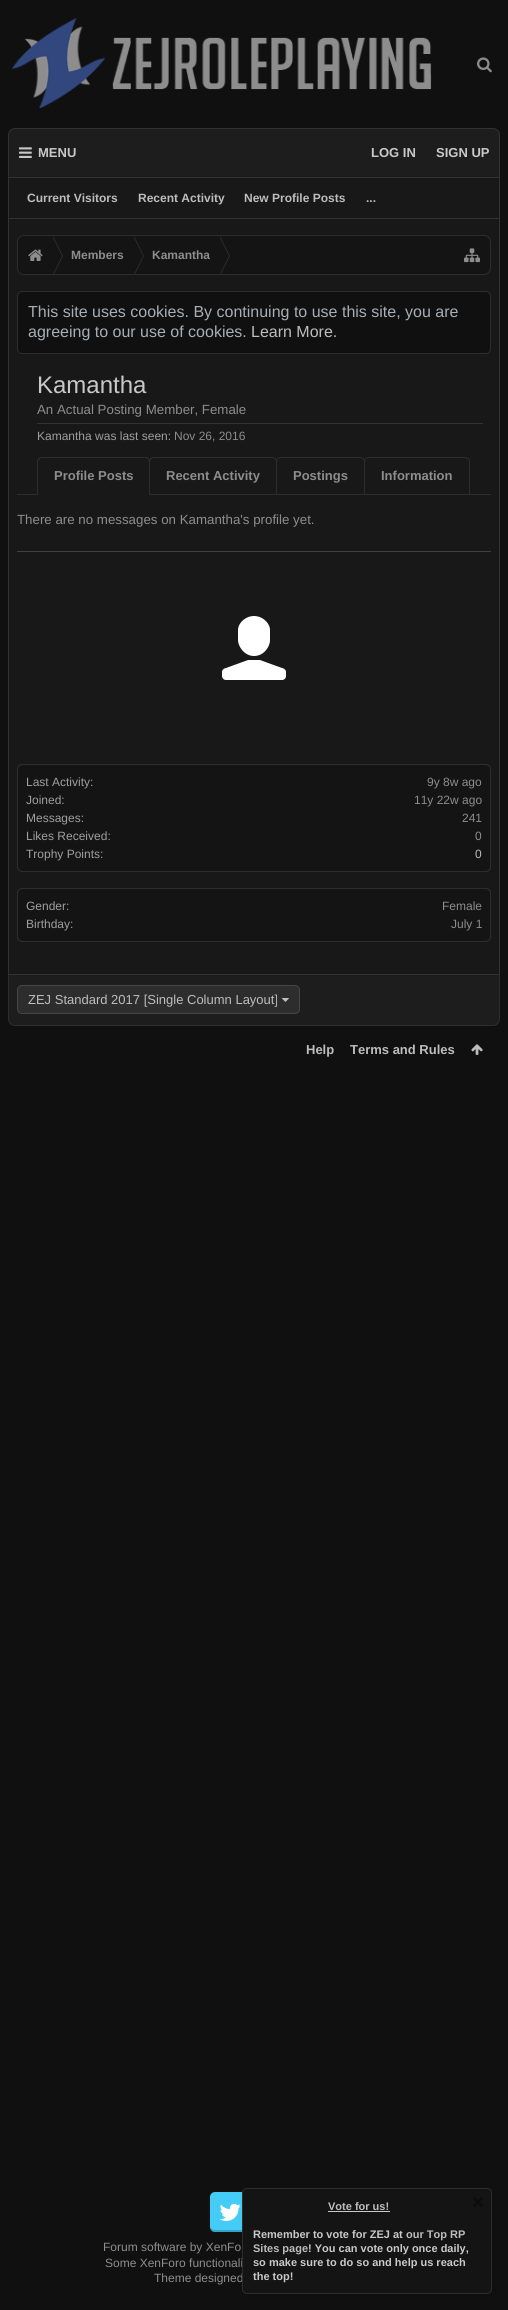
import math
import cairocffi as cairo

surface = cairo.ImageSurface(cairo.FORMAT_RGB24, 508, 2310)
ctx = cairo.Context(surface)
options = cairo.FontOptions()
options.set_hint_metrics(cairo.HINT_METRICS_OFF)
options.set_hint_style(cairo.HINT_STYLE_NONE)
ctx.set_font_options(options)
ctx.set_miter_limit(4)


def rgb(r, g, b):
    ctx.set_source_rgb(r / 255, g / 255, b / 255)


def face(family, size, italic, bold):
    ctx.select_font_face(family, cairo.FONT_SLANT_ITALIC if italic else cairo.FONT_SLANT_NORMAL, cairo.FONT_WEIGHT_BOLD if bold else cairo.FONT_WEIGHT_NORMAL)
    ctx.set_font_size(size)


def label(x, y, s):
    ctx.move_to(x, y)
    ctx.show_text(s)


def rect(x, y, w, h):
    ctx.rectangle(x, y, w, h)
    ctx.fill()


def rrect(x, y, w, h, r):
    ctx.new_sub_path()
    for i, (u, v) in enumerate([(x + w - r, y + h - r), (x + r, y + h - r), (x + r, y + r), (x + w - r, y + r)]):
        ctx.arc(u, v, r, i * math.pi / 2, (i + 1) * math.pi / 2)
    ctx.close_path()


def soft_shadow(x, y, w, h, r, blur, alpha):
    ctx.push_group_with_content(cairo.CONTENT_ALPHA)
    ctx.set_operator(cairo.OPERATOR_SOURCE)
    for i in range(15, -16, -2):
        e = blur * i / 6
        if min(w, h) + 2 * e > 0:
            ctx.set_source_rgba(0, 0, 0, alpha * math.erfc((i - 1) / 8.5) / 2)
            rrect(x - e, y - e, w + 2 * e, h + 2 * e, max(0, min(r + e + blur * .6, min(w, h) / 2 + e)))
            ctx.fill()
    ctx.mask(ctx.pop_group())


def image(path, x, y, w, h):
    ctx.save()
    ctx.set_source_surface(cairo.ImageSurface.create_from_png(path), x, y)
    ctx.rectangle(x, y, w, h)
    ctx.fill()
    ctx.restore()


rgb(16, 16, 16)
ctx.paint()
image('image0.png', 11, 18, 421, 90)
image('image1.png', 477, 57, 15, 16)
rgb(29, 29, 29)
ctx.new_path()
ctx.move_to(15, 128.5)
ctx.line_to(493, 128.5)
ctx.curve_to(496.5, 128.5, 499.5, 131.5, 499.5, 135)
ctx.line_to(499.5, 177.5)
ctx.line_to(8.5, 177.5)
ctx.line_to(8.5, 135)
ctx.curve_to(8.5, 131.5, 11.5, 128.5, 15, 128.5)
ctx.close_path()
ctx.fill_preserve()
rgb(50, 50, 50)
ctx.set_line_width(1)
ctx.stroke()
image('image2.png', 19, 147, 13, 11)
face('Liberation Sans', 13, 0, 1)
rgb(201, 201, 201)
label(38, 157, 'MENU')
rgb(24, 24, 24)
rect(9, 178, 490, 40)
rgb(50, 50, 50)
rect(499, 178, 1, 797)
rect(8, 218, 492, 1)
rect(8, 178, 1, 41)
face('Liberation Sans', 12, 0, 1)
rgb(189, 189, 189)
label(27, 202, 'Current Visitors')
label(138, 202, 'Recent Activity')
label(244, 202, 'New Profile Posts')
label(366, 202, '...')
face('Liberation Sans', 13, 0, 1)
rgb(201, 201, 201)
label(371, 157, 'LOG IN')
label(436, 157, 'SIGN UP')
rgb(24, 24, 24)
rect(9, 219, 490, 755)
rgb(50, 50, 50)
rect(8, 974, 492, 1)
rect(8, 219, 1, 756)
rgb(20, 20, 20)
rrect(17.5, 235.5, 473, 39, 6.5)
ctx.fill_preserve()
rgb(45, 45, 45)
ctx.stroke()
ctx.save()
rrect(18, 236, 472, 38, 6)
ctx.clip()
rgb(20, 20, 20)
ctx.new_path()
ctx.move_to(25, 236)
ctx.line_to(53, 236)
ctx.line_to(53, 275)
ctx.line_to(25, 275)
ctx.curve_to(21, 275, 18, 272, 18, 268)
ctx.line_to(18, 243)
ctx.curve_to(18, 239, 21, 236, 25, 236)
ctx.close_path()
ctx.fill()
ctx.restore()
image('image3.png', 28, 249, 15, 12)
ctx.new_path()
ctx.move_to(54, 274)
ctx.line_to(53, 274)
ctx.line_to(53, 236)
ctx.line_to(63, 256)
ctx.close_path()
ctx.fill()
rgb(20, 20, 20)
ctx.new_path()
ctx.move_to(53, 274)
ctx.line_to(52, 274)
ctx.line_to(52, 236)
ctx.line_to(62, 256)
ctx.close_path()
ctx.fill()
face('Liberation Sans', 12, 0, 1)
rgb(141, 141, 141)
label(71, 259, 'Members')
rgb(45, 45, 45)
ctx.new_path()
ctx.move_to(135, 274)
ctx.line_to(134, 274)
ctx.line_to(134, 236)
ctx.line_to(144, 256)
ctx.close_path()
ctx.fill()
rgb(20, 20, 20)
ctx.new_path()
ctx.move_to(134, 274)
ctx.line_to(133, 274)
ctx.line_to(133, 236)
ctx.line_to(143, 256)
ctx.close_path()
ctx.fill()
rgb(141, 141, 141)
label(152, 259, 'Kamantha')
rgb(45, 45, 45)
ctx.new_path()
ctx.move_to(221, 274)
ctx.line_to(220, 274)
ctx.line_to(220, 236)
ctx.line_to(230, 256)
ctx.close_path()
ctx.fill()
rgb(20, 20, 20)
ctx.new_path()
ctx.move_to(220, 274)
ctx.line_to(219, 274)
ctx.line_to(219, 236)
ctx.line_to(229, 256)
ctx.close_path()
ctx.fill()
image('image4.png', 464, 248, 16, 15)
rgb(16, 16, 16)
rrect(17.5, 291.5, 473, 62, 4.5)
ctx.fill_preserve()
rgb(45, 45, 45)
ctx.stroke()
face('Liberation Sans', 16, 0, 0)
rgb(168, 174, 179)
label(28, 317, 'This site uses cookies. By continuing to use this site, you are')
label(28, 337, 'agreeing to our use of cookies.')
rgb(189, 189, 189)
label(251, 337, 'Learn More.')
rgb(65, 65, 65)
rect(17, 551, 474, 1)
face('Liberation Sans', 24, 0, 0)
rgb(201, 201, 201)
label(37, 393, 'Kamantha')
face('Liberation Sans', 13.3, 0, 0)
rgb(141, 141, 141)
label(37, 414, 'An Actual Posting Member, Female')
rgb(50, 50, 50)
rect(37, 423, 446, 1)
face('Liberation Sans', 12, 0, 0)
rgb(159, 159, 159)
label(37, 440, 'Kamantha was last seen:')
rgb(141, 141, 141)
label(174, 440, 'Nov 26, 2016')
rgb(45, 45, 45)
rect(17, 494, 474, 1)
rgb(24, 24, 24)
ctx.new_path()
ctx.move_to(42, 457)
ctx.line_to(145, 457)
ctx.curve_to(148, 457, 150, 459, 150, 462)
ctx.line_to(150, 495)
ctx.line_to(37, 495)
ctx.line_to(37, 462)
ctx.curve_to(37, 459, 39, 457, 42, 457)
ctx.close_path()
ctx.fill()
rgb(45, 45, 45)
ctx.set_fill_rule(cairo.FILL_RULE_EVEN_ODD)
ctx.new_path()
ctx.move_to(42, 457)
ctx.line_to(145, 457)
ctx.curve_to(148, 457, 150, 459, 150, 462)
ctx.line_to(150, 495)
ctx.line_to(37, 495)
ctx.line_to(37, 462)
ctx.curve_to(37, 459, 39, 457, 42, 457)
ctx.close_path()
ctx.move_to(42, 458)
ctx.line_to(145, 458)
ctx.curve_to(147, 458, 149, 460, 149, 462)
ctx.line_to(149, 495)
ctx.line_to(38, 495)
ctx.line_to(38, 462)
ctx.curve_to(38, 460, 40, 458, 42, 458)
ctx.close_path()
ctx.fill()
face('Liberation Sans', 13, 0, 1)
rgb(141, 141, 141)
label(54, 480, 'Profile Posts')
rgb(24, 24, 24)
ctx.new_path()
ctx.move_to(154, 457.5)
ctx.line_to(272, 457.5)
ctx.curve_to(274.5, 457.5, 276.5, 459.5, 276.5, 462)
ctx.line_to(276.5, 494.5)
ctx.line_to(149.5, 494.5)
ctx.line_to(149.5, 462)
ctx.curve_to(149.5, 459.5, 151.5, 457.5, 154, 457.5)
ctx.close_path()
ctx.fill_preserve()
rgb(45, 45, 45)
ctx.stroke()
rgb(141, 141, 141)
label(166, 480, 'Recent Activity')
rgb(24, 24, 24)
ctx.new_path()
ctx.move_to(281, 457.5)
ctx.line_to(360, 457.5)
ctx.curve_to(362.5, 457.5, 364.5, 459.5, 364.5, 462)
ctx.line_to(364.5, 494.5)
ctx.line_to(276.5, 494.5)
ctx.line_to(276.5, 462)
ctx.curve_to(276.5, 459.5, 278.5, 457.5, 281, 457.5)
ctx.close_path()
ctx.fill_preserve()
rgb(45, 45, 45)
ctx.stroke()
rgb(141, 141, 141)
label(293, 480, 'Postings')
rgb(24, 24, 24)
ctx.new_path()
ctx.move_to(369, 457.5)
ctx.line_to(465, 457.5)
ctx.curve_to(467.5, 457.5, 469.5, 459.5, 469.5, 462)
ctx.line_to(469.5, 494.5)
ctx.line_to(364.5, 494.5)
ctx.line_to(364.5, 462)
ctx.curve_to(364.5, 459.5, 366.5, 457.5, 369, 457.5)
ctx.close_path()
ctx.fill_preserve()
rgb(45, 45, 45)
ctx.stroke()
rgb(141, 141, 141)
label(381, 480, 'Information')
face('Liberation Sans', 13.3, 0, 0)
label(17, 524, 'There are no messages on Kamantha\'s profile yet.')
image('image5.png', 222, 616, 64, 64)
rrect(17.5, 764.5, 473, 107, 4.5)
rgb(45, 45, 45)
ctx.stroke()
rgb(20, 20, 20)
rrect(18, 765, 472, 106, 7)
ctx.fill()
face('Liberation Sans', 12, 0, 0)
rgb(159, 159, 159)
label(26, 786, 'Last Activity:')
rgb(141, 141, 141)
label(427, 786, '9y 8w ago')
rgb(159, 159, 159)
label(26, 804, 'Joined:')
rgb(141, 141, 141)
label(414, 804, '11y 22w ago')
rgb(159, 159, 159)
label(26, 822, 'Messages:')
rgb(141, 141, 141)
label(462, 822, '241')
rgb(159, 159, 159)
label(26, 840, 'Likes Received:')
rgb(141, 141, 141)
label(475, 840, '0')
rgb(159, 159, 159)
label(26, 858, 'Trophy Points:')
rgb(189, 189, 189)
label(475, 858, '0')
rrect(17.5, 888.5, 473, 53, 4.5)
rgb(45, 45, 45)
ctx.stroke()
rgb(20, 20, 20)
rrect(18, 889, 472, 52, 7)
ctx.fill()
rgb(159, 159, 159)
label(26, 910, 'Gender:')
rgb(141, 141, 141)
label(442, 910, 'Female')
rgb(159, 159, 159)
label(26, 928, 'Birthday:')
rgb(141, 141, 141)
label(451, 928, 'July 1')
rgb(68, 204, 246)
rrect(210, 2192, 40, 40, 5)
ctx.fill()
ctx.set_source_rgba(0, 0, 0, 0.2)
ctx.set_fill_rule(cairo.FILL_RULE_WINDING)
ctx.new_path()
ctx.move_to(210, 2225)
ctx.curve_to(210, 2232, 213, 2232, 220, 2232)
ctx.line_to(240, 2232)
ctx.curve_to(247, 2232, 250, 2232, 250, 2225)
ctx.curve_to(250, 2228, 248, 2230, 245, 2230)
ctx.line_to(215, 2230)
ctx.curve_to(212, 2230, 210, 2228, 210, 2225)
ctx.close_path()
ctx.fill()
image('image9.png', 219, 2203, 22, 18)
rgb(0, 0, 0)
soft_shadow(248, 2194, 246, 102, 3, 5, 0.1)
rgb(141, 141, 141)
label(105, 2267, 'Some XenForo functionali')
label(154, 2282, 'Theme designed')
rgb(20, 20, 20)
rrect(242.5, 2188.5, 249, 105, 4.5)
ctx.fill_preserve()
rgb(45, 45, 45)
ctx.stroke()
face('Liberation Sans', 11, 0, 1)
rgb(189, 189, 189)
label(328, 2210, 'Vote for us!')
rgb(201, 201, 201)
rect(328, 2211, 62, 1)
label(253, 2238, 'Remember to vote for ZEJ at')
rgb(189, 189, 189)
label(406, 2238, 'our Top RP')
label(253, 2252, 'Sites page')
rgb(201, 201, 201)
label(308, 2252, '! You can vote only once daily,')
label(253, 2266, 'so make sure to do so and help us reach')
label(253, 2280, 'the top!')
image('image6.png', 473, 2197, 10, 10)
rgb(29, 29, 29)
ctx.new_path()
ctx.move_to(9, 975)
ctx.line_to(499, 975)
ctx.line_to(499, 1019)
ctx.curve_to(499, 1022.5, 496.5, 1025, 493, 1025)
ctx.line_to(15, 1025)
ctx.curve_to(11.5, 1025, 9, 1022.5, 9, 1019)
ctx.close_path()
ctx.fill()
rgb(45, 45, 45)
ctx.set_fill_rule(cairo.FILL_RULE_EVEN_ODD)
ctx.new_path()
ctx.move_to(8, 975)
ctx.line_to(500, 975)
ctx.line_to(500, 1019)
ctx.curve_to(500, 1023, 497, 1026, 493, 1026)
ctx.line_to(15, 1026)
ctx.curve_to(11, 1026, 8, 1023, 8, 1019)
ctx.close_path()
ctx.move_to(9, 975)
ctx.line_to(499, 975)
ctx.line_to(499, 1019)
ctx.curve_to(499, 1022, 496, 1025, 493, 1025)
ctx.line_to(15, 1025)
ctx.curve_to(12, 1025, 9, 1022, 9, 1019)
ctx.close_path()
ctx.fill()
rrect(17.5, 985.5, 282, 28, 4.5)
ctx.fill_preserve()
rgb(70, 70, 70)
ctx.stroke()
face('Liberation Sans', 13, 0, 0)
rgb(189, 189, 189)
label(28, 1004, 'ZEJ Standard 2017 [Single Column Layout]')
image('image7.png', 282, 998, 7, 4)
face('Liberation Sans', 13, 0, 1)
label(306, 1054, 'Help')
label(350, 1054, 'Terms and Rules')
image('image8.png', 471, 1044, 12, 11)
face('Liberation Sans', 12, 0, 0)
rgb(141, 141, 141)
label(103, 2251, 'Forum software by XenFo')
surface.write_to_png('render.png')
